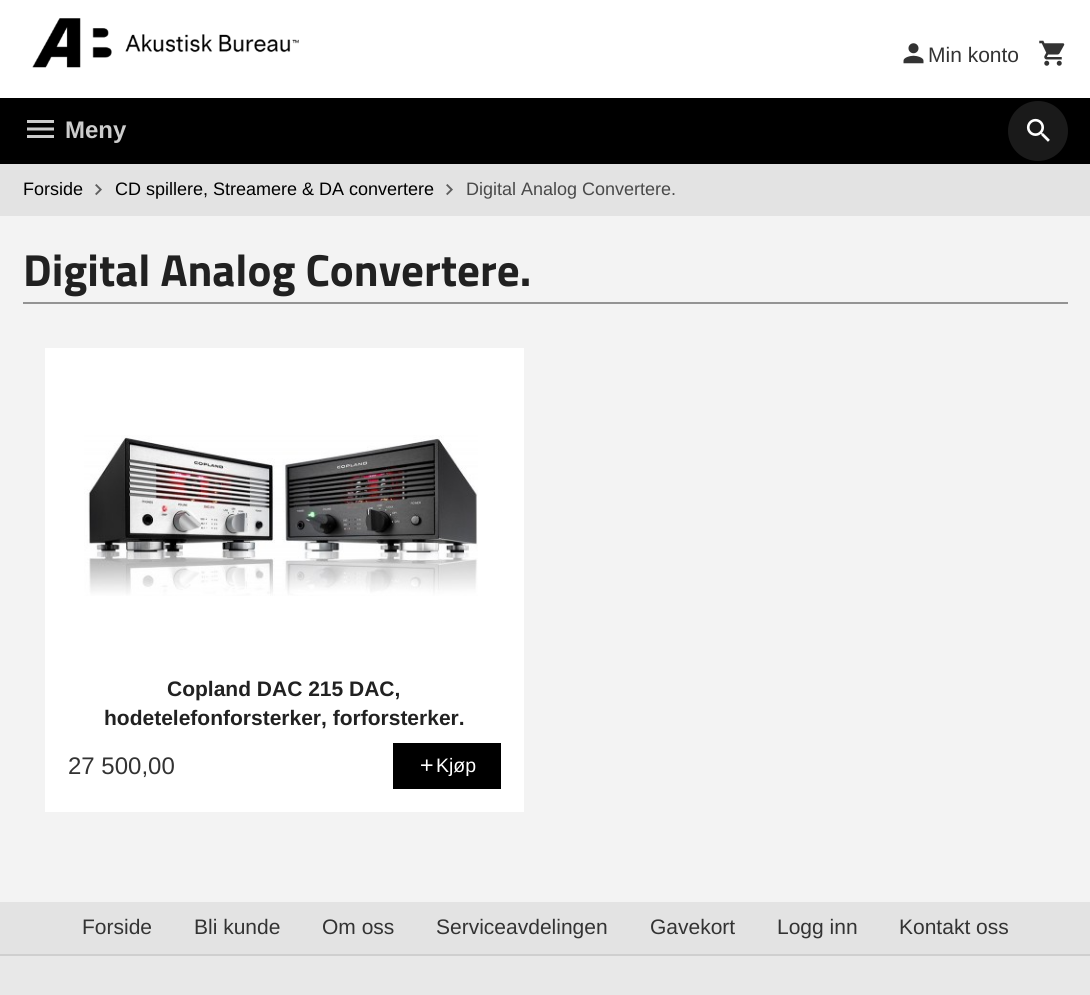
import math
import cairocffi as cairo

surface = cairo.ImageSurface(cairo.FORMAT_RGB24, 1090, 995)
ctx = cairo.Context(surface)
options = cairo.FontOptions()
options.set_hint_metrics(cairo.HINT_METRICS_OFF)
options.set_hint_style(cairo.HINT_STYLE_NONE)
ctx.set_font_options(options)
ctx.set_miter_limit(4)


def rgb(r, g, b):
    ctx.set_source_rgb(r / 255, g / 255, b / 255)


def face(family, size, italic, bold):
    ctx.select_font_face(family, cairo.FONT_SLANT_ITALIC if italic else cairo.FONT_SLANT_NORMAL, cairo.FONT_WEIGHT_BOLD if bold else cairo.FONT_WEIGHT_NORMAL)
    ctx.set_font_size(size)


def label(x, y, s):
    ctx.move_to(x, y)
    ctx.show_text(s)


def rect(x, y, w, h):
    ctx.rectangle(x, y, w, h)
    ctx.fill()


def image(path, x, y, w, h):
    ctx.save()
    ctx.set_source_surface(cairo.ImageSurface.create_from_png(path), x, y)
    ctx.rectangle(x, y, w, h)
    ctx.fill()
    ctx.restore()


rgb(243, 243, 243)
ctx.paint()
rgb(255, 255, 255)
rect(0, 0, 1090, 98)
image('image0.png', 32, 18, 267, 50)
image('image1.png', 903, 43, 21, 21)
face('Liberation Sans', 21, 0, 0)
rgb(51, 51, 51)
label(928, 62, 'Min konto')
image('image2.png', 1039, 40, 26, 26)
rgb(0, 0, 0)
rect(0, 98, 1090, 66)
image('image3.png', 27, 120, 27, 18)
face('Liberation Sans', 24, 0, 1)
rgb(204, 204, 204)
label(65, 138, 'Meny')
rgb(26, 26, 26)
ctx.new_path()
ctx.arc(1038, 131, 30, 0, 2 * math.pi)
ctx.fill()
image('image4.png', 1026, 118, 24, 24)
rgb(227, 227, 227)
rect(0, 164, 1090, 52)
face('Liberation Sans', 18, 0, 0)
rgb(0, 0, 0)
label(23, 195, 'Forside')
image('image5.png', 95, 184, 7, 12)
label(115, 195, 'CD spillere, Streamere & DA convertere')
image('image5.png', 446, 184, 7, 12)
rgb(73, 73, 73)
label(466, 195, 'Digital Analog Convertere.')
rgb(147, 147, 147)
rect(23, 302, 1045, 2)
face('Titillium Web', 45, 0, 1)
rgb(33, 33, 33)
label(23, 286, 'Digital Analog Convertere.')
rgb(255, 255, 255)
rect(45, 348, 479, 464)
image('image6.png', 84, 435, 394, 161)
face('Liberation Sans', 21, 0, 1)
rgb(33, 33, 33)
label(167, 696, 'Copland DAC 215 DAC,')
label(104, 725, 'hodetelefonforsterker, forforsterker.')
face('Liberation Sans', 24, 0, 0)
rgb(51, 51, 51)
label(68, 774, '27 500,00')
rgb(0, 0, 0)
rect(393, 743, 108, 46)
image('image7.png', 421, 759, 12, 12)
face('Liberation Sans', 19.5, 0, 0)
rgb(255, 255, 255)
label(436, 772, 'Kjøp')
rgb(227, 227, 227)
rect(0, 902, 1090, 52)
face('Liberation Sans', 21, 0, 0)
rgb(51, 51, 51)
label(82, 934, 'Forside')
label(194, 934, 'Bli kunde')
label(322, 934, 'Om oss')
label(436, 934, 'Serviceavdelingen')
label(650, 934, 'Gavekort')
label(777, 934, 'Logg inn')
label(899, 934, 'Kontakt oss')
rgb(232, 232, 232)
rect(0, 956, 1090, 39)
rgb(207, 207, 207)
rect(0, 954, 1090, 2)
surface.write_to_png('render.png')
